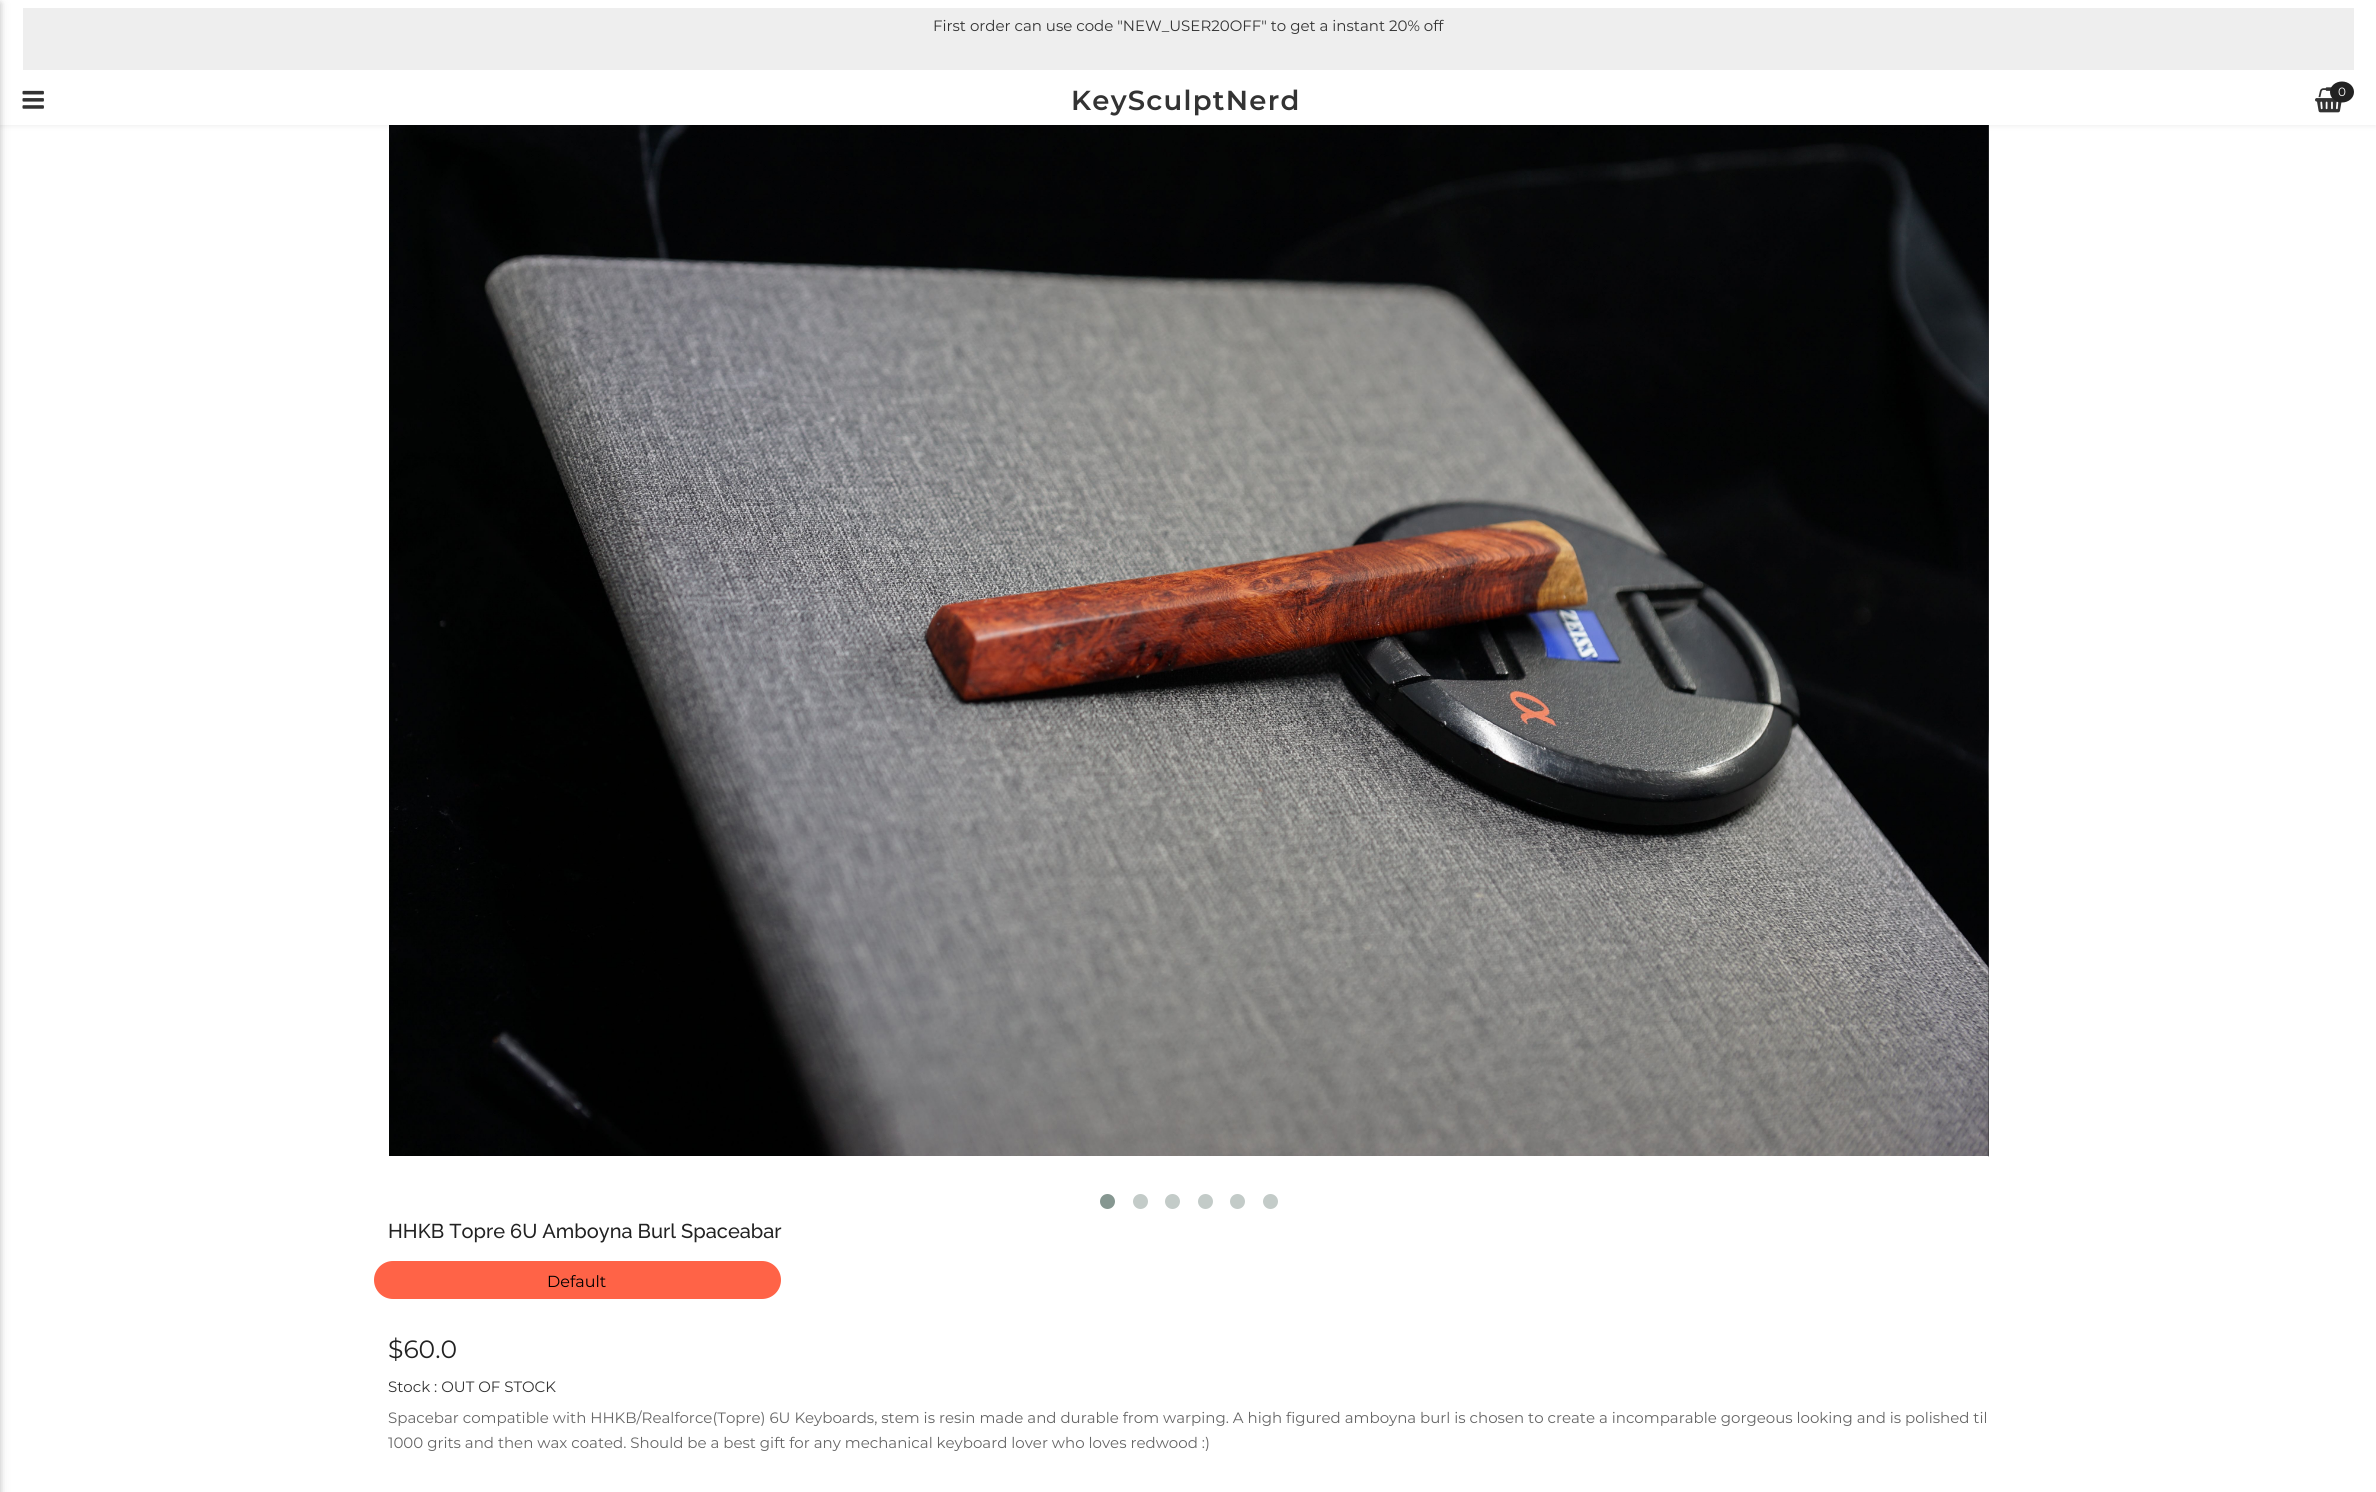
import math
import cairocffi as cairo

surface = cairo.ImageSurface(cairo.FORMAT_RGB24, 2376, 1492)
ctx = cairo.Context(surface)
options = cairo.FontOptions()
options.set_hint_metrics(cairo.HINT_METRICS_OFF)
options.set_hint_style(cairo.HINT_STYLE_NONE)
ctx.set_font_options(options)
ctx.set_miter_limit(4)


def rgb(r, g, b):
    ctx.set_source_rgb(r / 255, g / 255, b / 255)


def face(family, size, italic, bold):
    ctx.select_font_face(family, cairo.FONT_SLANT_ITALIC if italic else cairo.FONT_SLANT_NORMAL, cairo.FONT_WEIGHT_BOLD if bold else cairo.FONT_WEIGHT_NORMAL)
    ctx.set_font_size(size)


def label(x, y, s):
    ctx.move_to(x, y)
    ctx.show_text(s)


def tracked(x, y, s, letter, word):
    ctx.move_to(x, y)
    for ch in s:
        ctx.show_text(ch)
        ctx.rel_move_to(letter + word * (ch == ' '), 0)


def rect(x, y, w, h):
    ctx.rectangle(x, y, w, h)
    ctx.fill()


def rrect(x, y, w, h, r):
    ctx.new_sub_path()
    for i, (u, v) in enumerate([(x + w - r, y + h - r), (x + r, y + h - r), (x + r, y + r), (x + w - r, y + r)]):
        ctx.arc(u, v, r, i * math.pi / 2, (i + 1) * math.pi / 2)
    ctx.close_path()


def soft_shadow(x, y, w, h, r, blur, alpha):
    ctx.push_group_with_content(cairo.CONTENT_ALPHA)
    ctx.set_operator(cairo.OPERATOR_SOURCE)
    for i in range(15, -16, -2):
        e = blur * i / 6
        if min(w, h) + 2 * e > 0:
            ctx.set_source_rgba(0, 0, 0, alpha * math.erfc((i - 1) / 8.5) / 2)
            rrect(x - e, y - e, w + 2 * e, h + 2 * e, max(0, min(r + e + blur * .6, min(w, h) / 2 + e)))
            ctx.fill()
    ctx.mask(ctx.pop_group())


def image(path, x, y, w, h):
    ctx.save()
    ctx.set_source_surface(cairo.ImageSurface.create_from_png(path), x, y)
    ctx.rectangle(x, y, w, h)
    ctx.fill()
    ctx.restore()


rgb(255, 255, 255)
ctx.paint()
image('image2.png', 389, 125, 1600, 1031)
image('image3.png', 1988, 125, 1, 1032)
rgb(0, 0, 0)
soft_shadow(0, 1, 2376, 125, 0, 3, 0.07)
rgb(255, 255, 255)
rect(0, 0, 2376, 125)
rgb(0, 0, 0)
soft_shadow(-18, 3, 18, 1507, 0, 6, 0.12)
soft_shadow(-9, 3, 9, 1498, 0, 3, 0.16)
rgb(238, 238, 238)
rect(23, 8, 2331, 62)
face('Montserrat', 15, 0, 0)
rgb(51, 51, 51)
label(933, 31, 'First order can use code "NEW_USER20OFF" to get a instant 20% off')
image('image0.png', 22, 90, 22, 19)
face('Montserrat SemiBold', 27.5, 0, 0)
tracked(1071, 110, 'KeySculptNerd', 1.25, 0)
image('image1.png', 2315, 87, 27, 26)
rgb(34, 34, 34)
ctx.new_path()
ctx.move_to(2342, 81.5)
ctx.curve_to(2348.5, 81.5, 2354, 86, 2354, 92)
ctx.curve_to(2354, 98, 2348.5, 102.5, 2342, 102.5)
ctx.curve_to(2335.5, 102.5, 2330, 98, 2330, 92)
ctx.curve_to(2330, 86, 2335.5, 81.5, 2342, 81.5)
ctx.close_path()
ctx.fill()
face('Montserrat', 12, 0, 0)
rgb(255, 255, 255)
label(2338, 96, '0')
rgb(134, 151, 145)
ctx.new_path()
ctx.arc(1107.5, 1201.5, 7.5, 0, 2 * math.pi)
ctx.fill()
rgb(195, 203, 200)
ctx.arc(1140.5, 1201.5, 7.5, 0, 2 * math.pi)
ctx.fill()
ctx.arc(1172.5, 1201.5, 7.5, 0, 2 * math.pi)
ctx.fill()
ctx.arc(1205.5, 1201.5, 7.5, 0, 2 * math.pi)
ctx.fill()
ctx.arc(1237.5, 1201.5, 7.5, 0, 2 * math.pi)
ctx.fill()
ctx.arc(1270.5, 1201.5, 7.5, 0, 2 * math.pi)
ctx.fill()
face('Raleway Medium', 20, 0, 0)
rgb(34, 34, 34)
label(388, 1238, 'HHKB Topre 6U Amboyna Burl Spaceabar')
rgb(255, 99, 71)
rrect(374, 1261, 407, 38, 19)
ctx.fill()
face('Montserrat', 16, 0, 0)
rgb(0, 0, 0)
label(547, 1287, 'Default')
face('Montserrat', 25, 0, 0)
rgb(34, 34, 34)
label(388, 1358, '$60.0')
face('Montserrat', 15, 0, 0)
rgb(51, 51, 51)
label(388, 1392, 'Stock : OUT OF STOCK')
rgb(102, 102, 102)
label(388, 1423, 'Spacebar compatible with HHKB/Realforce(Topre) 6U Keyboards, stem is resin made and durable from warping. A high figured amboyna burl is chosen to create a incomparable gorgeous looking and is polished til')
label(388, 1448, '1000 grits and then wax coated. Should be a best gift for any mechanical keyboard lover who loves redwood :)')
surface.write_to_png('render.png')
